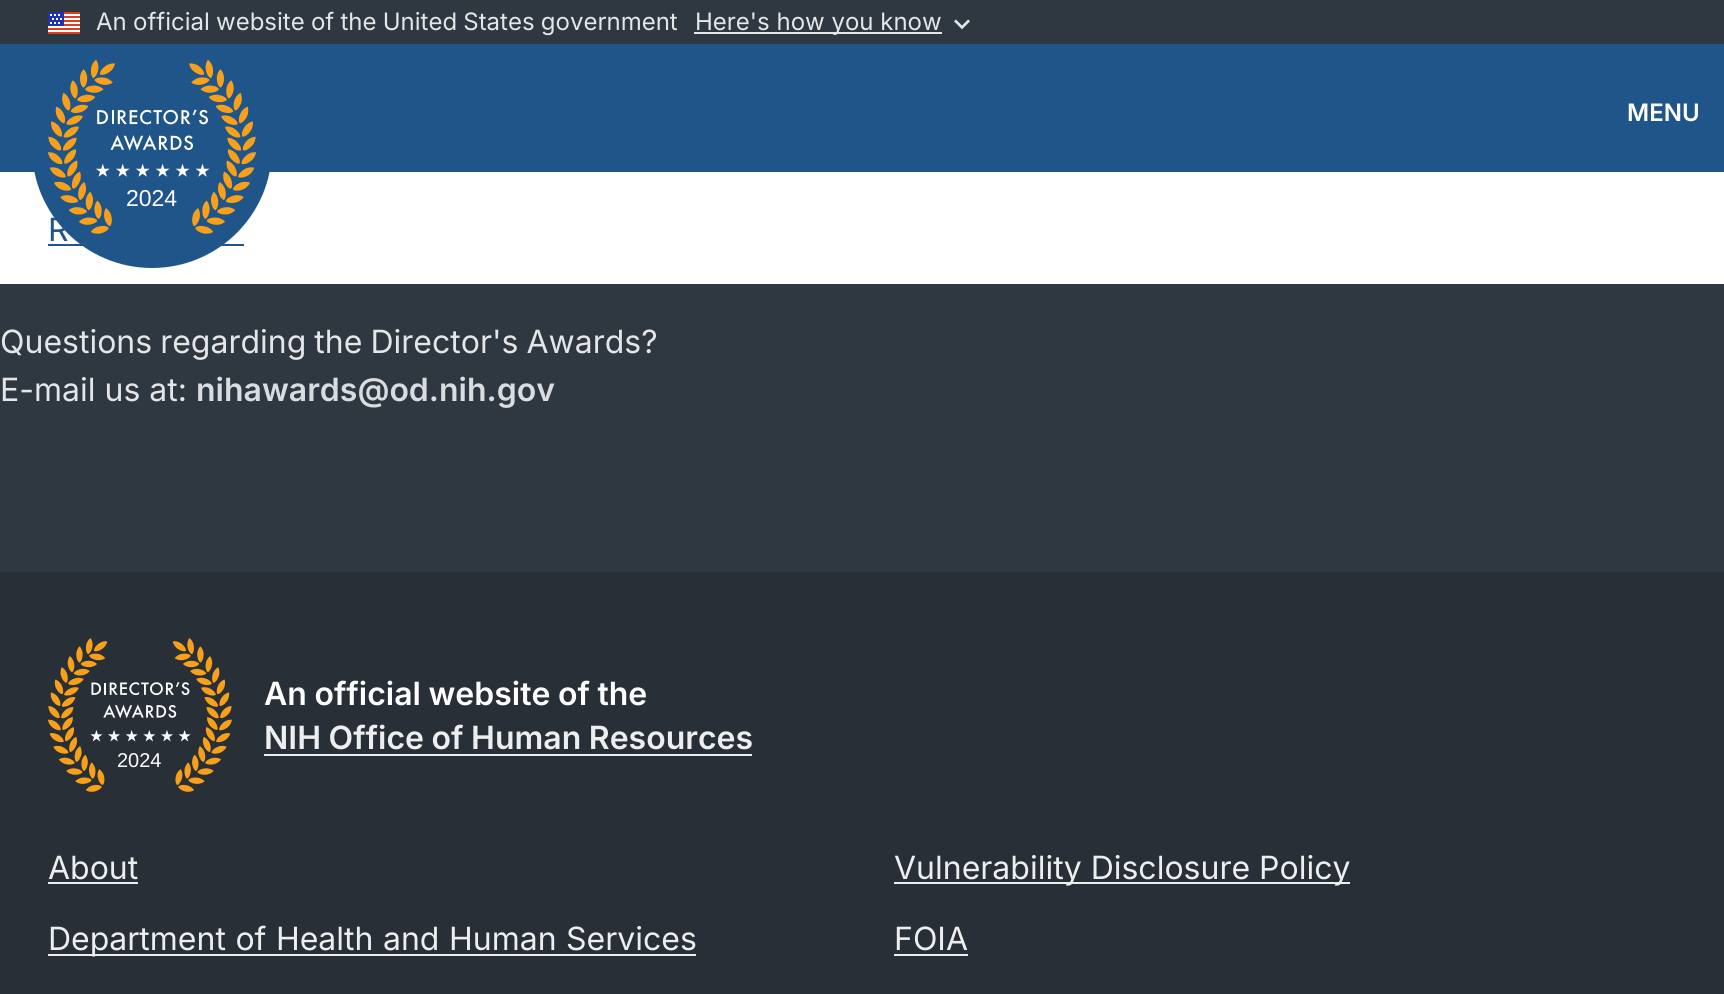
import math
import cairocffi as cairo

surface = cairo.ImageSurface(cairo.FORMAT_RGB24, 1724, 994)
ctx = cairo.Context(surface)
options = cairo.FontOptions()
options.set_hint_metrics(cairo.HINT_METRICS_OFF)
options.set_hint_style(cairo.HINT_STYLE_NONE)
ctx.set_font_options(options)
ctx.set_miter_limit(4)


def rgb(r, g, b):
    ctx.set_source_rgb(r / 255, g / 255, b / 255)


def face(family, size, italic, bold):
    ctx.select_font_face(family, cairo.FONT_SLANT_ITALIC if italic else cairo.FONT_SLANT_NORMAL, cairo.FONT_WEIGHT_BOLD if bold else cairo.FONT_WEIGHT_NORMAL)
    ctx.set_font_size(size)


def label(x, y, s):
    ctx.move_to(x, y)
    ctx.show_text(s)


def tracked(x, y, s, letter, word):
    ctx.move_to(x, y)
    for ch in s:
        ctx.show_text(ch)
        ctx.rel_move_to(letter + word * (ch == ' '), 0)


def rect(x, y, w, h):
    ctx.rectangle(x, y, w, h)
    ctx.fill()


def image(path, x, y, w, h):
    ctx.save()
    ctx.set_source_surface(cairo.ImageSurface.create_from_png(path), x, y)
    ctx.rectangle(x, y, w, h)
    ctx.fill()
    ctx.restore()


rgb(255, 255, 255)
ctx.paint()
rgb(32, 85, 138)
rect(0, 44, 1724, 128)
rect(48, 244, 196, 2)
ctx.arc(152, 148, 120, 0, 2 * math.pi)
ctx.fill()
rgb(47, 55, 64)
rect(0, 0, 1724, 44)
image('image0.png', 48, 12, 32, 22)
face('Inter', 24, 0, 0)
rgb(228, 230, 231)
tracked(96, 30, 'An official website of the United States government', 0, -0.5)
rect(694, 32, 248, 2)
label(695, 30, 'Here\'s how you know')
image('image1.png', 954, 19, 16, 11)
face('Inter SemiBold', 24, 0, 0)
rgb(255, 255, 255)
label(1627, 121, 'MENU')
face('Inter', 32, 0, 0)
rgb(32, 85, 138)
label(48, 241, 'R')
image('image2.png', 48, 59, 208, 175)
face('Liberation Sans', 23, 0, 0)
rgb(255, 255, 255)
label(126, 206, '2024')
rgb(47, 55, 64)
rect(0, 284, 1724, 288)
face('Inter', 32, 0, 0)
rgb(228, 230, 231)
tracked(0, 353, 'Questions regarding the Director\'s Awards?', 0, -1)
label(0, 401, 'E-mail us at:')
face('Inter SemiBold', 32, 0, 0)
rgb(218, 221, 224)
label(196, 401, 'nihawards@od.nih.gov')
rgb(40, 47, 54)
rect(0, 572, 1724, 422)
rgb(255, 255, 255)
tracked(264, 705, 'An official website of the', 0, -0.5)
rgb(237, 238, 239)
tracked(264, 749, 'NIH Office of Human Resources', 0, -0.5)
rect(264, 754, 488, 2)
image('image3.png', 48, 638, 184, 154)
face('Liberation Sans', 20, 0, 0)
rgb(255, 255, 255)
label(117, 767, '2024')
face('Inter', 32, 0, 0)
rgb(237, 238, 239)
label(48, 879, 'About')
rect(48, 882, 90, 2)
rect(894, 882, 456, 2)
label(894, 879, 'Vulnerability Disclosure Policy')
rect(48, 954, 648, 2)
tracked(48, 950, 'Department of Health and Human Services', 0, 0.5)
label(894, 950, 'FOIA')
rect(894, 954, 74, 2)
surface.write_to_png('render.png')
